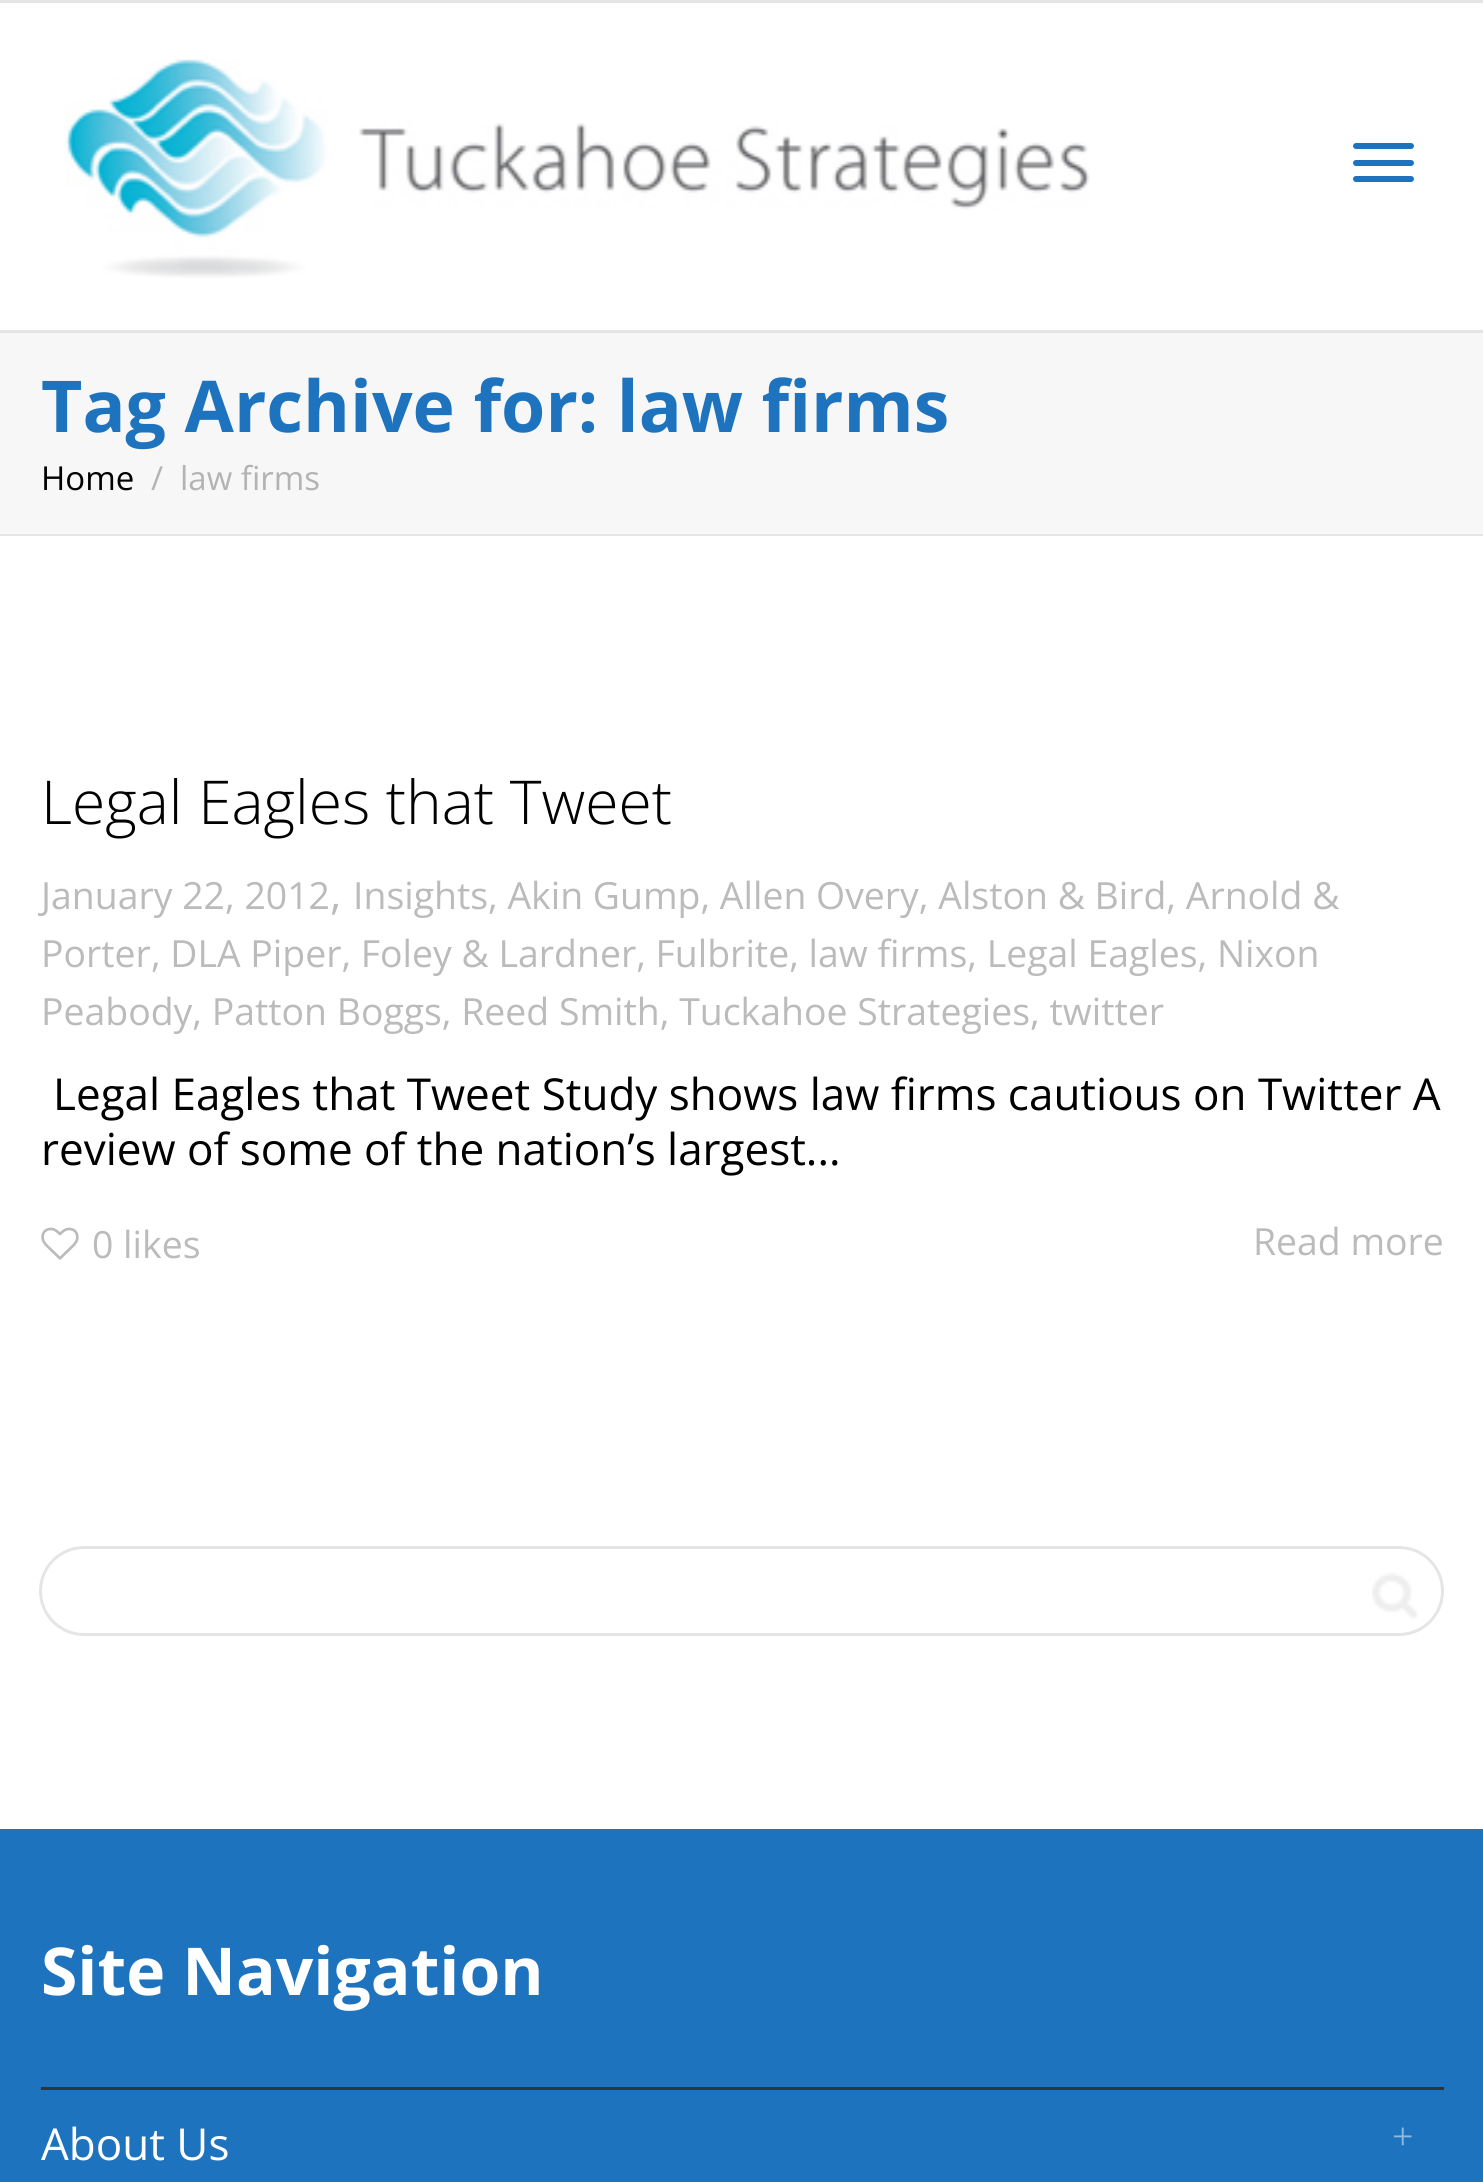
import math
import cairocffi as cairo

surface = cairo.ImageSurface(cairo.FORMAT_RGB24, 1483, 2182)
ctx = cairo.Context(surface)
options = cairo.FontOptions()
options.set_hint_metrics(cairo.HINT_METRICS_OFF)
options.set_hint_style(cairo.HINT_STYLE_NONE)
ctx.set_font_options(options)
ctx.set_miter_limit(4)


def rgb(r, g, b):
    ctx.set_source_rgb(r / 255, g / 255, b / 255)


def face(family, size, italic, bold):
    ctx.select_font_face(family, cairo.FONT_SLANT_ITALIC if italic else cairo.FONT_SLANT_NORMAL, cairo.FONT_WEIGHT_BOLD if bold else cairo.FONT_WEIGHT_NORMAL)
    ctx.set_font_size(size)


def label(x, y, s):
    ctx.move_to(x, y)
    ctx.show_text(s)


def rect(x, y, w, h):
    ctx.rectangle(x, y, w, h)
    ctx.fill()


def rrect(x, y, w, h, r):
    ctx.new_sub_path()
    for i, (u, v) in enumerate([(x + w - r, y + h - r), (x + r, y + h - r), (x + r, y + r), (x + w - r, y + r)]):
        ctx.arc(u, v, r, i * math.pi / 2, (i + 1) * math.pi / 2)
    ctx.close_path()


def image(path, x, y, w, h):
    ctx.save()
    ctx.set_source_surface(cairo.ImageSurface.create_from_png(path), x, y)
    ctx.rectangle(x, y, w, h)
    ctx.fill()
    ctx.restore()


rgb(247, 247, 247)
ctx.paint()
rgb(229, 229, 229)
rect(0, 0, 1483, 3)
rgb(255, 255, 255)
rect(0, 3, 1483, 327)
rgb(229, 229, 229)
rect(0, 330, 1483, 3)
image('image0.png', 65, 59, 1025, 219)
rgb(30, 115, 190)
rrect(1353, 143, 61, 6, 3)
ctx.fill()
rrect(1353, 160, 61, 6, 3)
ctx.fill()
rrect(1353, 176, 61, 6, 3)
ctx.fill()
rgb(229, 229, 229)
rect(0, 534, 1483, 2)
face('Open Sans', 71.5, 0, 1)
rgb(30, 115, 190)
label(41, 432, 'Tag Archive for: law firms')
face('Open Sans', 33, 0, 0)
rgb(0, 0, 0)
label(41, 490, 'Home')
rgb(179, 179, 179)
label(151, 490, '/')
label(180, 490, 'law firms')
rgb(255, 255, 255)
rect(0, 536, 1483, 1293)
face('Open Sans Light', 60.5, 0, 0)
rgb(0, 0, 0)
label(41, 824, 'Legal Eagles that Tweet')
face('Open Sans', 37.4, 0, 0)
rgb(187, 187, 187)
label(41, 909, 'January 22, 2012')
face('Open Sans', 44, 0, 0)
label(330, 909, ',')
face('Open Sans', 37.4, 0, 0)
label(353, 909, 'Insights, Akin Gump, Allen Overy, Alston & Bird, Arnold &')
label(41, 967, 'Porter, DLA Piper, Foley & Lardner, Fulbrite, law firms, Legal Eagles, Nixon')
label(41, 1025, 'Peabody, Patton Boggs, Reed Smith, Tuckahoe Strategies, twitter')
face('Open Sans', 44, 0, 0)
rgb(0, 0, 0)
label(53, 1110, 'Legal Eagles that Tweet Study shows law firms cautious on Twitter A')
label(41, 1165, 'review of some of the nation’s largest...')
image('image1.png', 41, 1227, 38, 33)
face('Open Sans', 37.4, 0, 0)
rgb(187, 187, 187)
label(92, 1258, '0 likes')
label(1253, 1255, 'Read more')
rrect(40.5, 1547.5, 1402, 87, 43.5)
rgb(229, 229, 229)
ctx.set_line_width(3)
ctx.stroke()
image('image2.png', 1372, 1572, 46, 47)
rgb(30, 115, 190)
rect(0, 1829, 1483, 353)
face('Open Sans', 66, 0, 1)
rgb(255, 255, 255)
label(41, 1995, 'Site Navigation')
rgb(51, 51, 51)
rect(41, 2087, 1403, 3)
face('Open Sans', 44, 0, 0)
rgb(255, 255, 255)
label(41, 2160, 'About Us')
face('Liberation Serif', 38, 0, 0)
rgb(143, 185, 223)
label(1392, 2149, '+')
surface.write_to_png('render.png')
